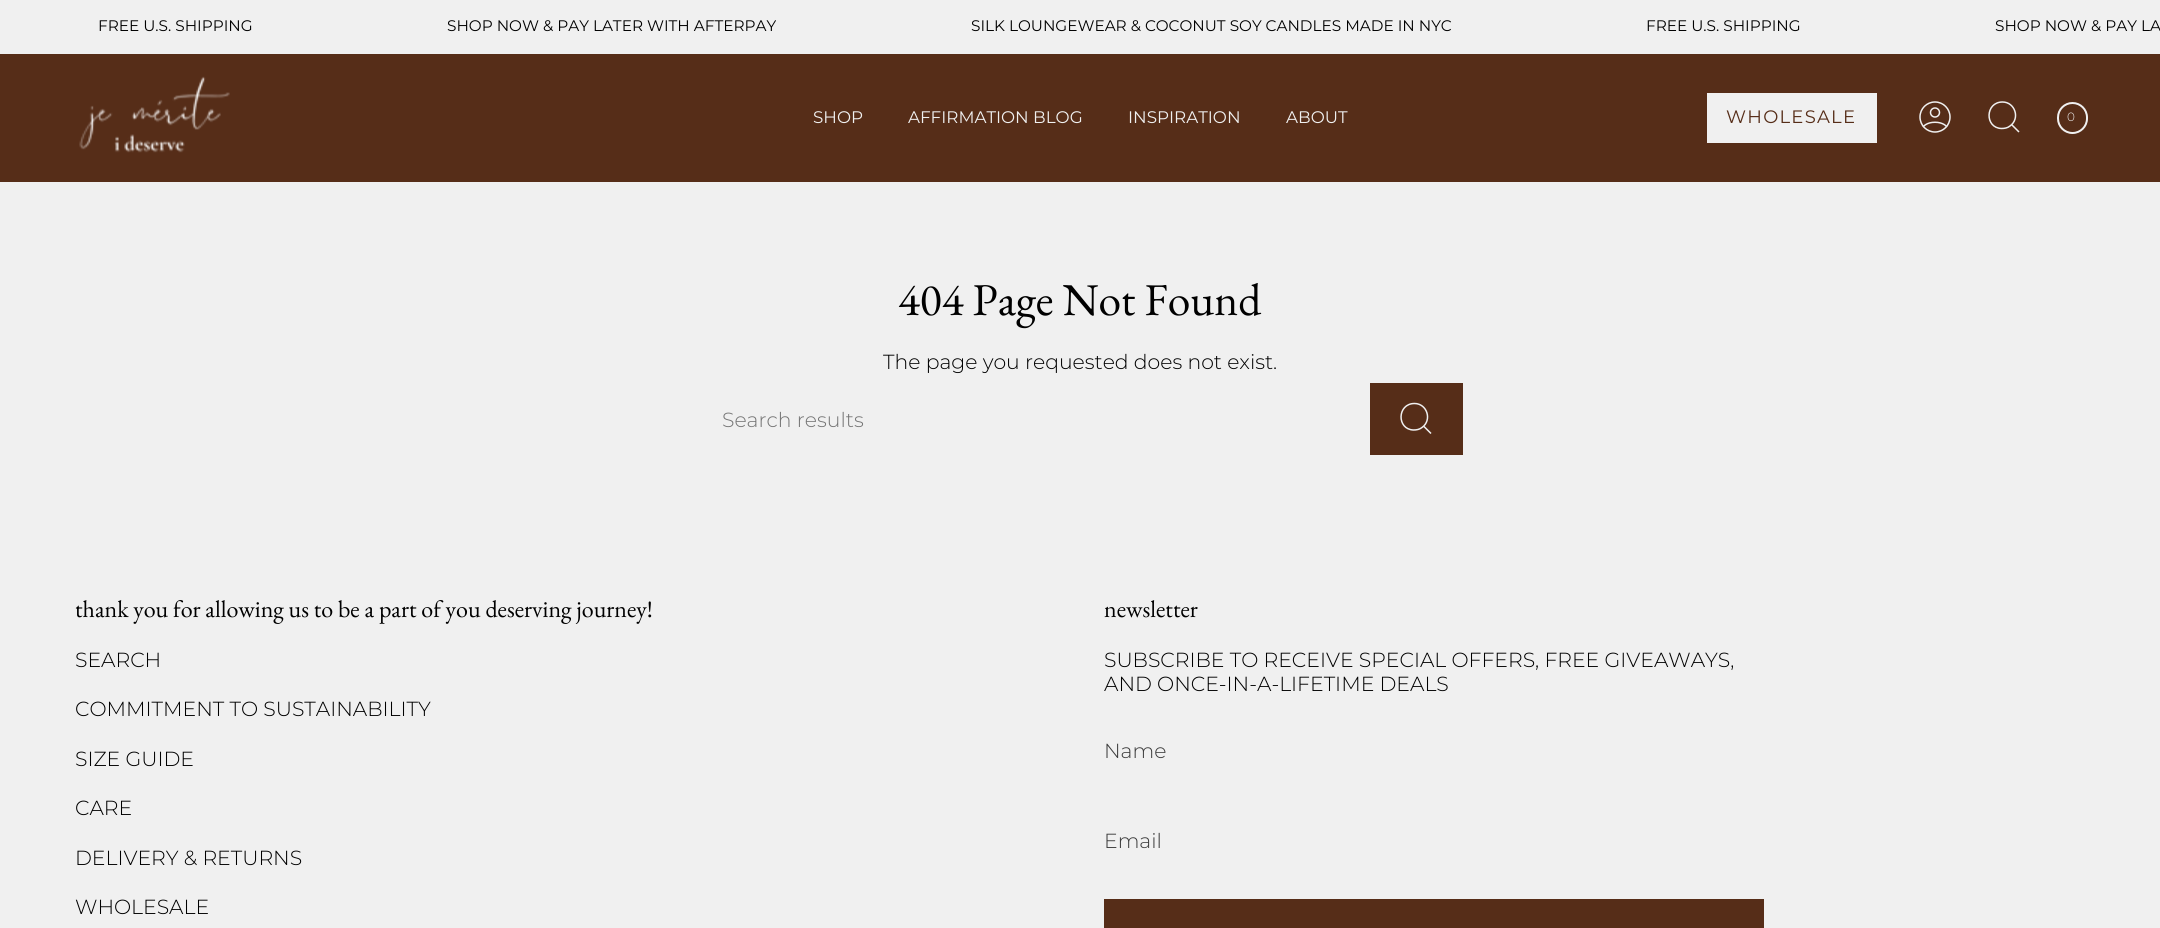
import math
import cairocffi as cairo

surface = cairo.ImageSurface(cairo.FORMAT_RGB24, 2160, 928)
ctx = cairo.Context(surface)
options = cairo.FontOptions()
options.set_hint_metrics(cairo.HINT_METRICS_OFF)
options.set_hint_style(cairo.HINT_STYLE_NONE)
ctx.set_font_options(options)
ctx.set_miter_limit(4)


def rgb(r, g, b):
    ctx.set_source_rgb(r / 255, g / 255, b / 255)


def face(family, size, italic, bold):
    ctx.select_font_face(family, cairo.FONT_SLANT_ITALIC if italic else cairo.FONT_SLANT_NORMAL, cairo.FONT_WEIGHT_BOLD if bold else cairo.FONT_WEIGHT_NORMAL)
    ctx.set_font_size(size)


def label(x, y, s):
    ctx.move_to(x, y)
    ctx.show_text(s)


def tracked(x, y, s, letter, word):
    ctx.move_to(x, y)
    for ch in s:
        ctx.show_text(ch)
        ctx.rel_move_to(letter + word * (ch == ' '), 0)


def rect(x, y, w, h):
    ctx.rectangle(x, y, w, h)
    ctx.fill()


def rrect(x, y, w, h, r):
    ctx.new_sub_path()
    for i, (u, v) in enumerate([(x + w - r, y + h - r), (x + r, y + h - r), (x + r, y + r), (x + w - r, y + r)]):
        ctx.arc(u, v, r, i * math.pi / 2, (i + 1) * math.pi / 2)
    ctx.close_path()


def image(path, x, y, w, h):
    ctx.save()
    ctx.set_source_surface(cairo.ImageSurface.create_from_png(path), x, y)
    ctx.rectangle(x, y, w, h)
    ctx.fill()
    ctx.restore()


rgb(240, 240, 240)
ctx.paint()
face('Montserrat', 15.3, 0, 0)
rgb(0, 0, 0)
label(98, 31, 'FREE U.S. SHIPPING')
label(447, 31, 'SHOP NOW & PAY LATER WITH AFTERPAY')
label(971, 31, 'SILK LOUNGEWEAR & COCONUT SOY CANDLES MADE IN NYC')
label(1646, 31, 'FREE U.S. SHIPPING')
label(1995, 31, 'SHOP NOW & PAY LA')
rgb(86, 45, 24)
rect(0, 54, 2160, 128)
image('image0.png', 79, 76, 151, 77)
face('Montserrat', 16.75, 0, 0)
rgb(240, 240, 240)
label(813, 123, 'SHOP')
label(908, 123, 'AFFIRMATION BLOG')
label(1128, 123, 'INSPIRATION')
label(1286, 123, 'ABOUT')
rect(1707, 93, 170, 50)
face('Montserrat', 18, 0, 0)
rgb(86, 45, 24)
tracked(1726, 123, 'WHOLESALE', 1.25, 0)
image('image1.png', 1919, 101, 32, 32)
ctx.new_path()
ctx.move_to(2002.5, 102)
ctx.curve_to(2015, 102, 2020.5, 118.5, 2010, 126)
ctx.curve_to(2007.5, 128, 2004.5, 128.5, 2001.5, 128.5)
ctx.curve_to(1984.5, 128, 1985, 102, 2002.5, 102)
ctx.close_path()
ctx.move_to(2011.5, 124.5)
ctx.line_to(2019, 132)
rgb(240, 240, 240)
ctx.set_line_width(1.5)
ctx.stroke()
rrect(2058, 103, 29, 30, 14.5)
ctx.set_line_width(2)
ctx.stroke()
face('Montserrat Light', 12, 0, 0)
label(2067, 121, '0')
face('EB Garamond', 45.5, 0, 0)
rgb(0, 0, 0)
label(898, 315, '404 Page Not Found')
face('Montserrat Light', 20.4, 0, 0)
label(883, 369, 'The page you requested does not exist.')
rgb(117, 117, 117)
label(722, 427, 'Search results')
rgb(86, 45, 24)
rect(1370, 383, 93, 72)
ctx.new_path()
ctx.move_to(1414.5, 403.5)
ctx.curve_to(1427, 403.5, 1432.5, 420, 1422, 427.5)
ctx.curve_to(1419.5, 429.5, 1416.5, 430, 1413.5, 430)
ctx.curve_to(1396.5, 429.5, 1397, 403.5, 1414.5, 403.5)
ctx.close_path()
ctx.move_to(1423.5, 426)
ctx.line_to(1431, 433.5)
rgb(240, 240, 240)
ctx.set_line_width(1.5)
ctx.stroke()
face('EB Garamond', 24, 0, 0)
rgb(0, 0, 0)
label(75, 617, 'thank you for allowing us to be a part of you deserving journey!')
face('Montserrat Light', 20.4, 0, 0)
label(75, 667, 'SEARCH')
label(75, 716, 'COMMITMENT TO SUSTAINABILITY')
label(75, 766, 'SIZE GUIDE')
label(75, 815, 'CARE')
label(75, 865, 'DELIVERY & RETURNS')
label(75, 914, 'WHOLESALE')
face('EB Garamond', 24, 0, 0)
label(1104, 617, 'newsletter')
face('Montserrat Light', 20.4, 0, 0)
label(1104, 667, 'SUBSCRIBE TO RECEIVE SPECIAL OFFERS, FREE GIVEAWAYS,')
label(1104, 691, 'AND ONCE-IN-A-LIFETIME DEALS')
rgb(60, 60, 60)
label(1104, 758, 'Name')
label(1104, 848, 'Email')
rgb(86, 45, 24)
rect(1104, 899, 660, 29)
surface.write_to_png('render.png')
